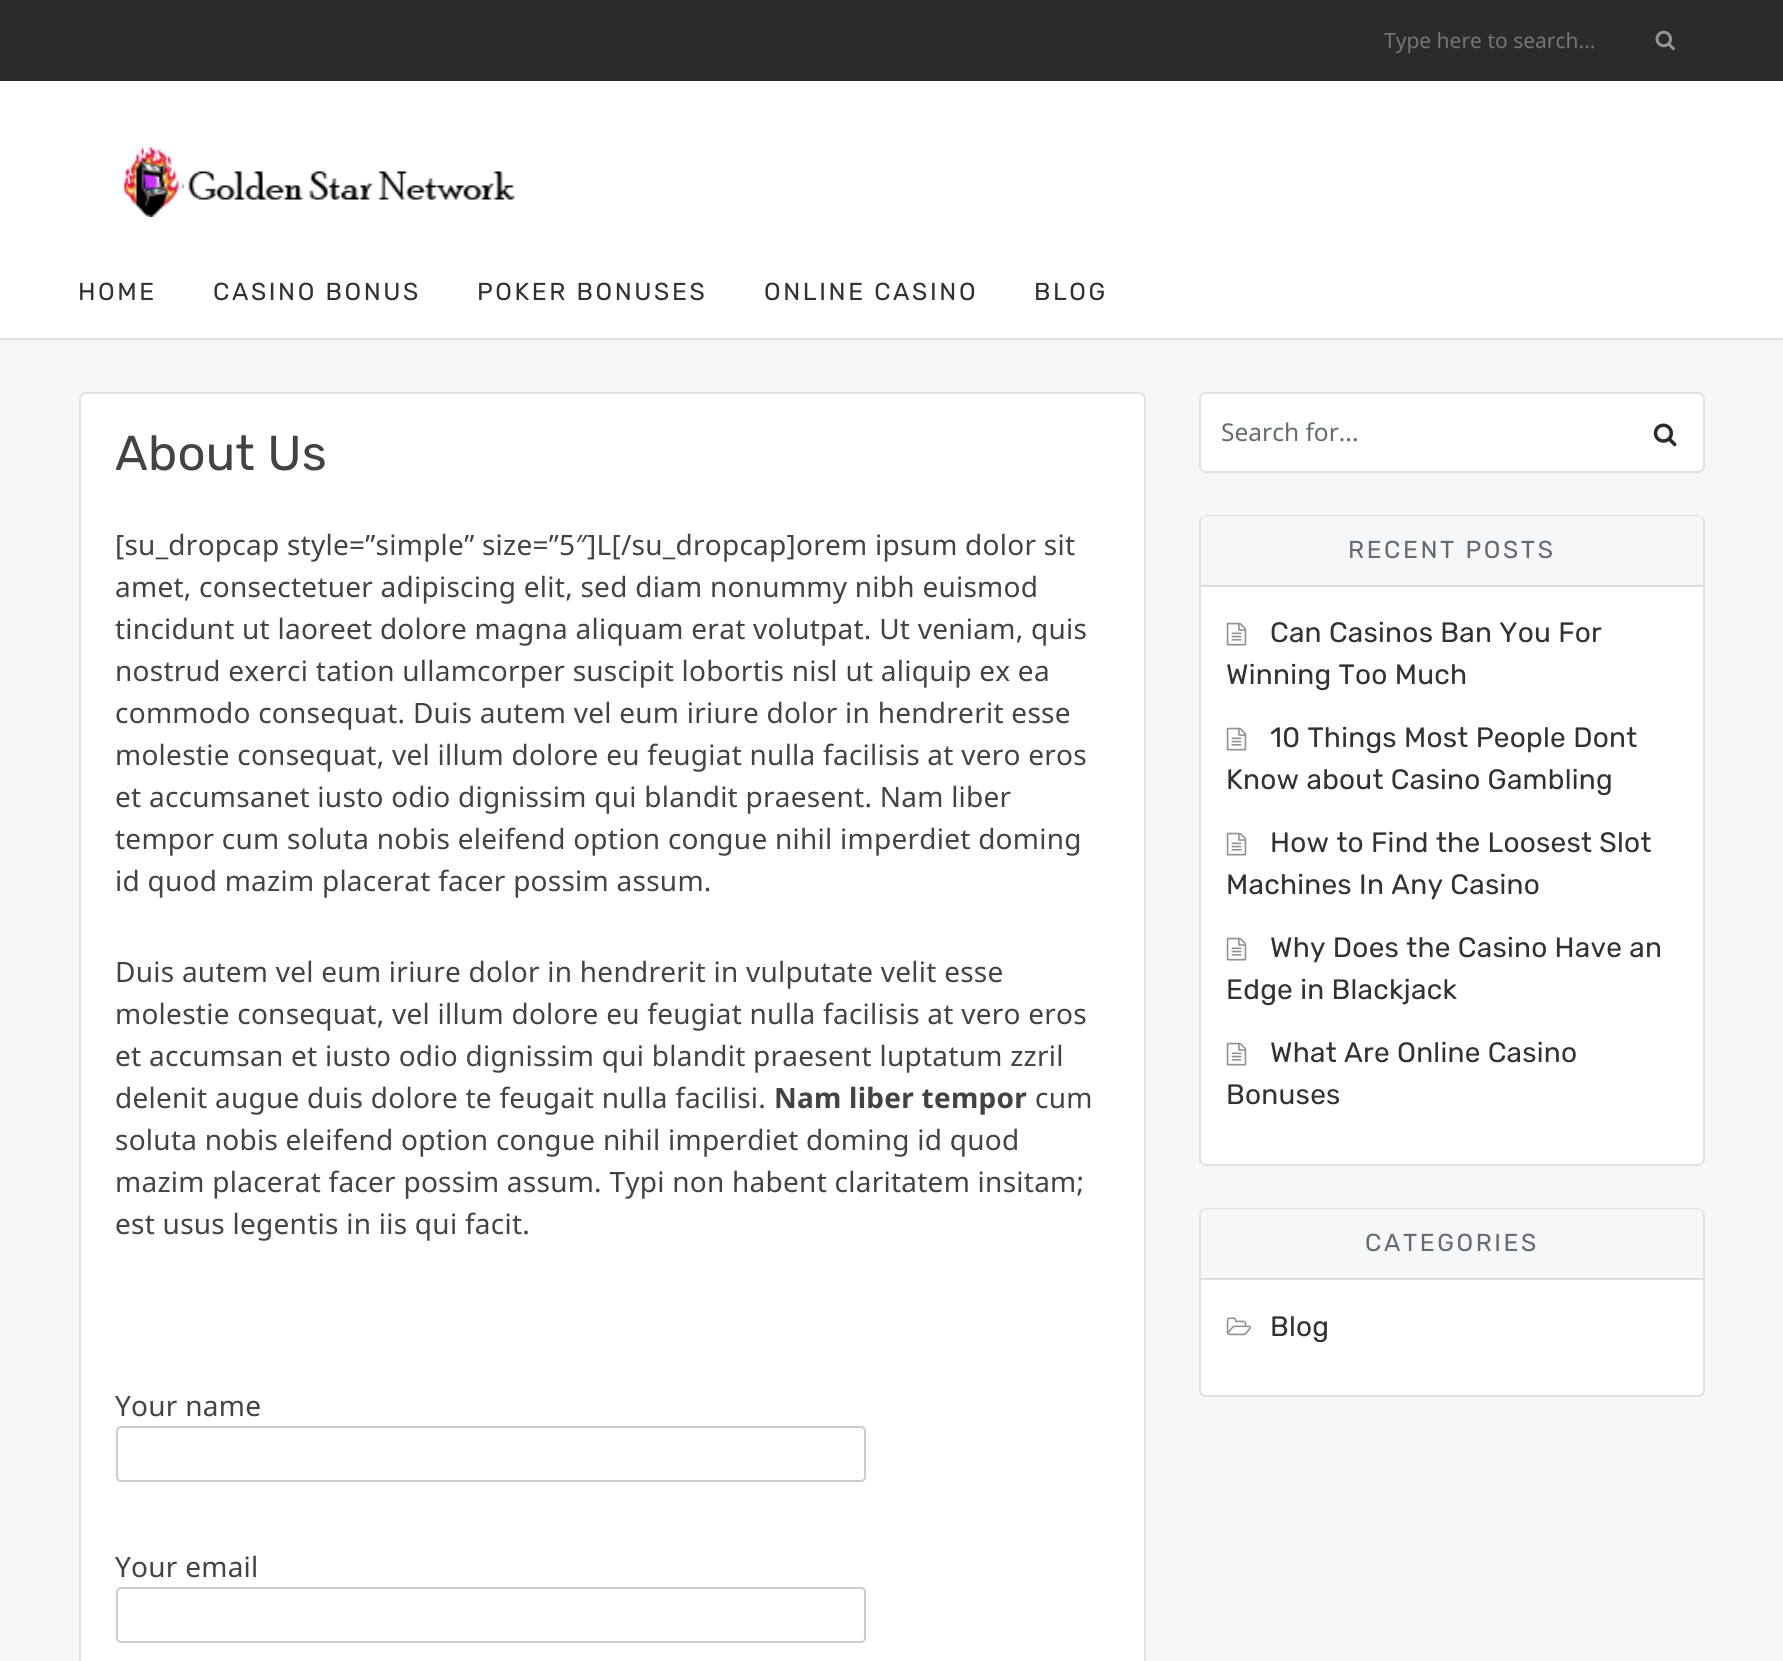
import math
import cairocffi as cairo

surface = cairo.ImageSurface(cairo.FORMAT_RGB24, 1783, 1661)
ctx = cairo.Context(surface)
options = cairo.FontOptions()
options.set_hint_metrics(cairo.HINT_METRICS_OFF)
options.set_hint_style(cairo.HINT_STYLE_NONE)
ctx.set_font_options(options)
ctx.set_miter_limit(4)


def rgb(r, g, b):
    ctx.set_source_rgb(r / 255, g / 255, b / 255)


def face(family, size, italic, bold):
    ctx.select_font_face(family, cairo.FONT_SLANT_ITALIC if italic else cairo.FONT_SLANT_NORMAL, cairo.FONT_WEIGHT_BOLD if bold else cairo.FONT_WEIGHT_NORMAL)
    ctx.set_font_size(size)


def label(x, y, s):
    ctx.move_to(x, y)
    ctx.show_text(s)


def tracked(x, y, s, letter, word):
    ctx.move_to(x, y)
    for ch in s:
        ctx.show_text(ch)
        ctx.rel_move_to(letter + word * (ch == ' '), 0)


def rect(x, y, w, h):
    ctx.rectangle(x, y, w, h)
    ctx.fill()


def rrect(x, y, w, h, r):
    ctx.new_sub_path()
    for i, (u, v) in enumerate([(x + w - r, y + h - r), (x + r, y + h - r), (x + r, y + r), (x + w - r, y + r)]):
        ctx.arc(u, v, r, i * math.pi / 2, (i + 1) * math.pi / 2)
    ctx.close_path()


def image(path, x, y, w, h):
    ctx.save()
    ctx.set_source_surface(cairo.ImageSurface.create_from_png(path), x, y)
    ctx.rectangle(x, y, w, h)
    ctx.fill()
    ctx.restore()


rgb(247, 247, 249)
ctx.paint()
rgb(41, 43, 44)
rect(0, 0, 1783, 81)
face('Noto Sans', 21, 0, 0)
rgb(116, 117, 118)
label(1384, 48, 'Type here to search...')
image('image0.png', 1655, 30, 20, 21)
rgb(255, 255, 255)
rect(0, 81, 1783, 257)
rgb(223, 223, 223)
rect(0, 338, 1783, 2)
image('image1.png', 123, 147, 392, 70)
face('Rubik Light', 24.5, 0, 0)
rgb(50, 50, 50)
tracked(78, 300, 'HOME', 2.6, 0)
tracked(213, 300, 'CASINO BONUS', 2.6, 0)
tracked(477, 300, 'POKER BONUSES', 2.6, 0)
tracked(764, 300, 'ONLINE CASINO', 2.6, 0)
tracked(1034, 300, 'BLOG', 2.6, 0)
rgb(255, 255, 255)
rrect(79, 392, 1067, 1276, 7)
ctx.fill()
rrect(80, 393, 1065, 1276, 6)
ctx.set_source_rgba(0, 0, 0, 0.12)
ctx.stroke()
face('Rubik Light', 49, 0, 0)
rgb(67, 67, 67)
tracked(115, 470, 'About Us', 0.25, 0)
face('Noto Sans', 28, 0, 0)
tracked(115, 555, '[su_dropcap style=”simple” size=”5″]L[/su_dropcap]orem ipsum dolor sit', 0.25, 0)
tracked(115, 597, 'amet, consectetuer adipiscing elit, sed diam nonummy nibh euismod', 0.25, 0)
tracked(115, 639, 'tincidunt ut laoreet dolore magna aliquam erat volutpat. Ut veniam, quis', 0.25, 0)
tracked(115, 681, 'nostrud exerci tation ullamcorper suscipit lobortis nisl ut aliquip ex ea', 0.25, 0)
tracked(115, 723, 'commodo consequat. Duis autem vel eum iriure dolor in hendrerit esse', 0.25, 0)
tracked(115, 765, 'molestie consequat, vel illum dolore eu feugiat nulla facilisis at vero eros', 0.25, 0)
tracked(115, 807, 'et accumsanet iusto odio dignissim qui blandit praesent. Nam liber', 0.25, 0)
tracked(115, 849, 'tempor cum soluta nobis eleifend option congue nihil imperdiet doming', 0.25, 0)
tracked(115, 891, 'id quod mazim placerat facer possim assum.', 0.25, 0)
tracked(115, 982, 'Duis autem vel eum iriure dolor in hendrerit in vulputate velit esse', 0.25, 0)
tracked(115, 1024, 'molestie consequat, vel illum dolore eu feugiat nulla facilisis at vero eros', 0.25, 0)
tracked(115, 1066, 'et accumsan et iusto odio dignissim qui blandit praesent luptatum zzril', 0.25, 0)
tracked(115, 1108, 'delenit augue duis dolore te feugait nulla facilisi.', 0.25, 0)
face('Noto Sans', 28, 0, 1)
tracked(774, 1108, 'Nam liber tempor', 0.25, 0)
face('Noto Sans', 28, 0, 0)
tracked(1035, 1108, 'cum', 0.25, 0)
tracked(115, 1150, 'soluta nobis eleifend option congue nihil imperdiet doming id quod', 0.25, 0)
tracked(115, 1192, 'mazim placerat facer possim assum. Typi non habent claritatem insitam;', 0.25, 0)
tracked(115, 1234, 'est usus legentis in iis qui facit.', 0.25, 0)
tracked(115, 1416, 'Your name', 0.25, 0)
rrect(117, 1427, 748, 54, 4)
rgb(204, 204, 204)
ctx.stroke()
rgb(67, 67, 67)
tracked(115, 1577, 'Your email', 0.25, 0)
rrect(117, 1588, 748, 54, 4)
rgb(204, 204, 204)
ctx.stroke()
rgb(255, 255, 255)
rrect(1199, 392, 506, 81, 7)
ctx.fill()
rrect(1200, 393, 504, 79, 6)
ctx.set_source_rgba(0, 0, 0, 0.12)
ctx.stroke()
rgb(255, 255, 255)
ctx.new_path()
ctx.move_to(1206, 394)
ctx.line_to(1629, 394)
ctx.line_to(1629, 471)
ctx.line_to(1206, 471)
ctx.curve_to(1203, 471, 1201, 469, 1201, 466)
ctx.line_to(1201, 399)
ctx.curve_to(1201, 396, 1203, 394, 1206, 394)
ctx.close_path()
ctx.fill()
face('Noto Sans', 24.5, 0, 0)
rgb(99, 108, 114)
label(1221, 441, 'Search for...')
image('image2.png', 1653, 423, 24, 24)
rgb(255, 255, 255)
rrect(1199, 515, 506, 651, 7)
ctx.fill()
rgb(224, 224, 224)
rect(1201, 586, 502, 1)
rrect(1200, 516, 504, 649, 6)
ctx.set_source_rgba(0, 0, 0, 0.12)
ctx.stroke()
rgb(247, 247, 249)
ctx.new_path()
ctx.move_to(1206, 516)
ctx.line_to(1698, 516)
ctx.curve_to(1701, 516, 1703, 518, 1703, 521)
ctx.line_to(1703, 586)
ctx.line_to(1201, 586)
ctx.line_to(1201, 521)
ctx.curve_to(1201, 518, 1203, 516, 1206, 516)
ctx.close_path()
ctx.fill()
rgb(217, 217, 219)
rect(1201, 585, 502, 1)
face('Rubik Light', 24.5, 0, 0)
rgb(99, 108, 114)
tracked(1348, 558, 'RECENT POSTS', 2.6, 0)
image('image3.png', 1226, 622, 21, 24)
face('Rubik Light', 28, 0, 0)
rgb(50, 50, 50)
tracked(1270, 642, 'Can Casinos Ban You For', 0.25, 0)
tracked(1226, 684, 'Winning Too Much', 0.25, 0)
image('image3.png', 1226, 727, 21, 24)
tracked(1270, 747, '10 Things Most People Dont', 0.25, 0)
tracked(1226, 789, 'Know about Casino Gambling', 0.25, 0)
image('image3.png', 1226, 832, 21, 24)
tracked(1270, 852, 'How to Find the Loosest Slot', 0.25, 0)
tracked(1226, 894, 'Machines In Any Casino', 0.25, 0)
image('image3.png', 1226, 937, 21, 24)
tracked(1270, 957, 'Why Does the Casino Have an', 0.25, 0)
tracked(1226, 999, 'Edge in Blackjack', 0.25, 0)
image('image3.png', 1226, 1042, 21, 24)
tracked(1270, 1062, 'What Are Online Casino', 0.25, 0)
tracked(1226, 1104, 'Bonuses', 0.25, 0)
rgb(255, 255, 255)
rrect(1199, 1208, 506, 189, 7)
ctx.fill()
rgb(224, 224, 224)
rect(1201, 1279, 502, 1)
rrect(1200, 1209, 504, 187, 6)
ctx.set_source_rgba(0, 0, 0, 0.12)
ctx.stroke()
rgb(247, 247, 249)
ctx.new_path()
ctx.move_to(1206, 1209)
ctx.line_to(1698, 1209)
ctx.curve_to(1701, 1209, 1703, 1211, 1703, 1214)
ctx.line_to(1703, 1279)
ctx.line_to(1201, 1279)
ctx.line_to(1201, 1214)
ctx.curve_to(1201, 1211, 1203, 1209, 1206, 1209)
ctx.close_path()
ctx.fill()
rgb(217, 217, 219)
rect(1201, 1278, 502, 1)
face('Rubik Light', 24.5, 0, 0)
rgb(99, 108, 114)
tracked(1365, 1251, 'CATEGORIES', 2.6, 0)
image('image4.png', 1226, 1317, 25, 19)
face('Rubik Light', 28, 0, 0)
rgb(50, 50, 50)
tracked(1270, 1336, 'Blog', 0.25, 0)
surface.write_to_png('render.png')
